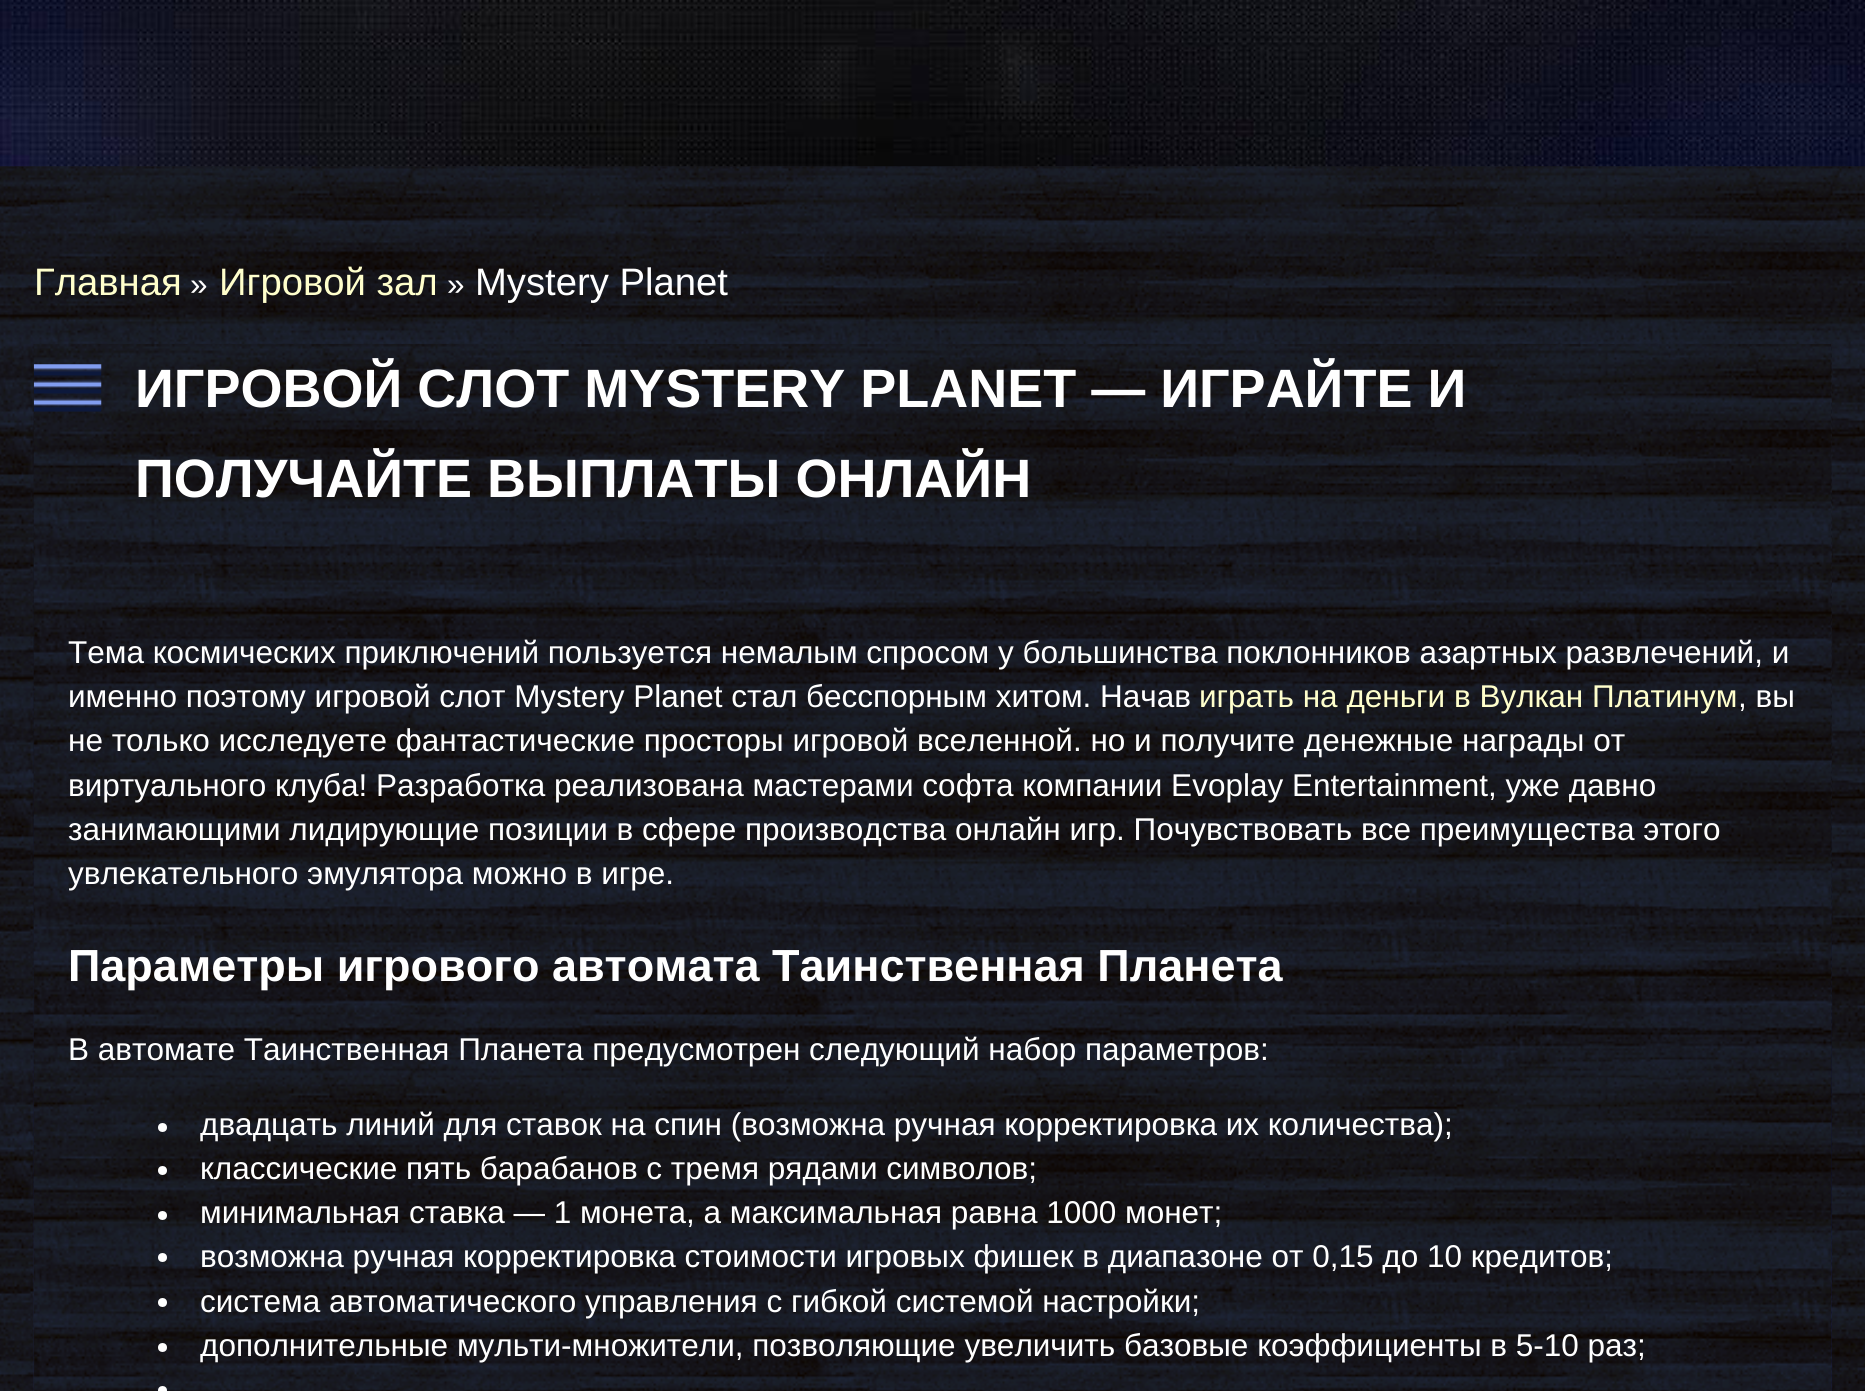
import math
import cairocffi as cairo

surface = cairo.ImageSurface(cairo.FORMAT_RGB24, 1865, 1391)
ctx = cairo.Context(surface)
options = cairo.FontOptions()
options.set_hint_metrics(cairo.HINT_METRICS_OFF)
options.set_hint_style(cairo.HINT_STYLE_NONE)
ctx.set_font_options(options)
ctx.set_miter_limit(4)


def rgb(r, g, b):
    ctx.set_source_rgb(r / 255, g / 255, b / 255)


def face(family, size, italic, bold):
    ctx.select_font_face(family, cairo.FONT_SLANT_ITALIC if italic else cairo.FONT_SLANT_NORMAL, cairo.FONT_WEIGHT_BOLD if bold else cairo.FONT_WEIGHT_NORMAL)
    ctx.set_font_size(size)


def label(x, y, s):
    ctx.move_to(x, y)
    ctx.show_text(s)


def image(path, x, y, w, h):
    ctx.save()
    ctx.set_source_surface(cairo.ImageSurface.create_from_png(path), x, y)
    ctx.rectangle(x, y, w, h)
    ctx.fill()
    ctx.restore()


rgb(255, 255, 255)
ctx.paint()
image('image0.png', 0, 0, 1865, 167)
image('image1.png', 0, 166, 1865, 1225)
face('Liberation Sans', 38.25, 0, 0)
rgb(255, 255, 204)
label(34, 295, 'Главная')
face('Liberation Sans', 31.5, 0, 0)
rgb(255, 255, 255)
label(190, 295, '»')
face('Liberation Sans', 38.25, 0, 0)
rgb(255, 255, 204)
label(219, 295, 'Игровой зал')
face('Liberation Sans', 31.5, 0, 0)
rgb(255, 255, 255)
label(447, 295, '»')
face('Liberation Sans', 38.25, 0, 0)
label(475, 295, 'Mystery Planet')
image('image2.png', 33, 344, 1799, 1047)
image('image3.png', 33, 344, 1799, 1047)
image('image4.png', 33, 364, 69, 48)
face('Liberation Sans', 54, 0, 1)
label(135, 407, 'ИГРОВОЙ СЛОТ MYSTERY PLANET — ИГРАЙТЕ И')
label(135, 497, 'ПОЛУЧАЙТЕ ВЫПЛАТЫ ОНЛАЙН')
face('Liberation Sans', 31.5, 0, 0)
label(68, 663, 'Тема космических приключений пользуется немалым спросом у большинства поклонников азартных развлечений, и')
label(68, 707, 'именно поэтому игровой слот Mystery Planet стал бесспорным хитом. Начав')
rgb(255, 255, 204)
label(1199, 707, 'играть на деньги в Вулкан Платинум')
rgb(255, 255, 255)
label(1738, 707, ', вы')
label(68, 751, 'не только исследуете фантастические просторы игровой вселенной. но и получите денежные награды от')
label(68, 796, 'виртуального клуба! Разработка реализована мастерами софта компании Evoplay Entertainment, уже давно')
label(68, 840, 'занимающими лидирующие позиции в сфере производства онлайн игр. Почувствовать все преимущества этого')
label(68, 884, 'увлекательного эмулятора можно в игре.')
face('Liberation Sans', 45, 0, 1)
label(68, 981, 'Параметры игрового автомата Таинственная Планета')
face('Liberation Sans', 31.5, 0, 0)
label(68, 1060, 'В автомате Таинственная Планета предусмотрен следующий набор параметров:')
ctx.new_path()
ctx.arc(162.5, 1127.5, 4.5, 0, 2 * math.pi)
ctx.fill()
label(200, 1135, 'двадцать линий для ставок на спин (возможна ручная корректировка их количества);')
ctx.new_path()
ctx.arc(162.5, 1170.5, 4.5, 0, 2 * math.pi)
ctx.fill()
label(200, 1179, 'классические пять барабанов с тремя рядами символов;')
ctx.new_path()
ctx.arc(162.5, 1215.5, 4.5, 0, 2 * math.pi)
ctx.fill()
label(200, 1223, 'минимальная ставка — 1 монета, а максимальная равна 1000 монет;')
ctx.new_path()
ctx.arc(162.5, 1257.5, 4.5, 0, 2 * math.pi)
ctx.fill()
label(200, 1267, 'возможна ручная корректировка стоимости игровых фишек в диапазоне от 0,15 до 10 кредитов;')
ctx.new_path()
ctx.arc(162.5, 1302.5, 4.5, 0, 2 * math.pi)
ctx.fill()
label(200, 1312, 'система автоматического управления с гибкой системой настройки;')
ctx.new_path()
ctx.arc(162.5, 1347.5, 4.5, 0, 2 * math.pi)
ctx.fill()
label(200, 1356, 'дополнительные мульти-множители, позволяющие увеличить базовые коэффициенты в 5-10 раз;')
ctx.new_path()
ctx.arc(162.5, 1390.5, 4.5, 0, 2 * math.pi)
ctx.fill()
surface.write_to_png('render.png')
